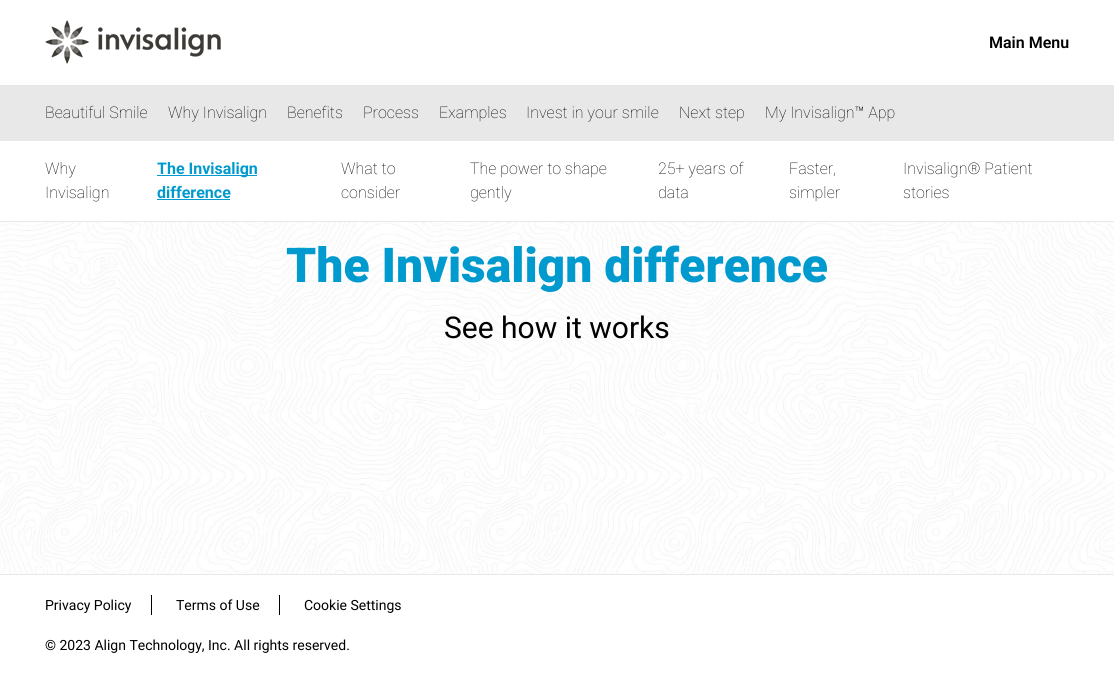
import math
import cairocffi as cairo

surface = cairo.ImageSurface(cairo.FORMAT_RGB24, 1114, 695)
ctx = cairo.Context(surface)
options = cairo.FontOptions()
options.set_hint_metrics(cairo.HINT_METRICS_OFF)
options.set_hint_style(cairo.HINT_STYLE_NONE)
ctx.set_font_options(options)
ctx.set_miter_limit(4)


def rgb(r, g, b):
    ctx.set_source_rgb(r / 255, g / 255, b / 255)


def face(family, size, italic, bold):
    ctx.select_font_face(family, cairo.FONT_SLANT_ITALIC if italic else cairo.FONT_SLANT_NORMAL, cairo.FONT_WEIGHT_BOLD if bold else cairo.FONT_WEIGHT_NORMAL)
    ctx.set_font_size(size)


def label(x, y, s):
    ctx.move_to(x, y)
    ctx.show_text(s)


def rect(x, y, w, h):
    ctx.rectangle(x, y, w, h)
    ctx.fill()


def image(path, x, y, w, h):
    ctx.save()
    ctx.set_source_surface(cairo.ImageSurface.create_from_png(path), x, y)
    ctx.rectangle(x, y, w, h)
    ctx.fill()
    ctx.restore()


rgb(255, 255, 255)
ctx.paint()
image('image0.png', 45, 20, 176, 44)
face('Roboto SemiBold', 16, 0, 0)
rgb(0, 0, 0)
label(989, 48, 'Main Menu')
rgb(232, 232, 232)
rect(0, 85, 1114, 56)
face('Roboto Thin', 16, 0, 0)
rgb(0, 0, 0)
label(45, 118, 'Beautiful Smile')
label(168, 118, 'Why Invisalign')
label(287, 118, 'Benefits')
label(363, 118, 'Process')
label(439, 118, 'Examples')
label(526, 118, 'Invest in your smile')
label(679, 118, 'Next step')
label(765, 118, 'My Invisalign™ App')
rgb(232, 232, 232)
rect(0, 221, 1114, 1)
rgb(0, 0, 0)
label(45, 174, 'Why')
label(45, 198, 'Invisalign')
rgb(0, 154, 206)
rect(157, 175, 100, 1)
face('Roboto', 16, 0, 1)
label(157, 174, 'The Invisalign')
label(157, 198, 'difference')
rect(157, 199, 73, 1)
face('Roboto Thin', 16, 0, 0)
rgb(0, 0, 0)
label(341, 174, 'What to')
label(341, 198, 'consider')
label(470, 174, 'The power to shape')
label(470, 198, 'gently')
label(658, 174, '25+ years of')
label(658, 198, 'data')
label(789, 174, 'Faster,')
label(789, 198, 'simpler')
label(903, 174, 'Invisalign® Patient')
label(903, 198, 'stories')
image('image1.png', 0, 222, 1114, 352)
face('Roboto Black', 48, 0, 0)
rgb(0, 154, 206)
label(286, 282, 'The Invisalign difference')
face('Roboto', 30, 0, 0)
rgb(0, 0, 0)
label(444, 338, 'See how it works')
rgb(232, 232, 232)
rect(0, 574, 1114, 1)
rgb(0, 0, 0)
rect(151, 595, 1, 20)
face('Roboto', 14, 0, 0)
label(45, 610, 'Privacy Policy')
rect(279, 595, 1, 20)
label(176, 610, 'Terms of Use')
label(304, 610, 'Cookie Settings')
label(45, 650, '© 2023 Align Technology, Inc. All rights reserved.')
surface.write_to_png('render.png')
